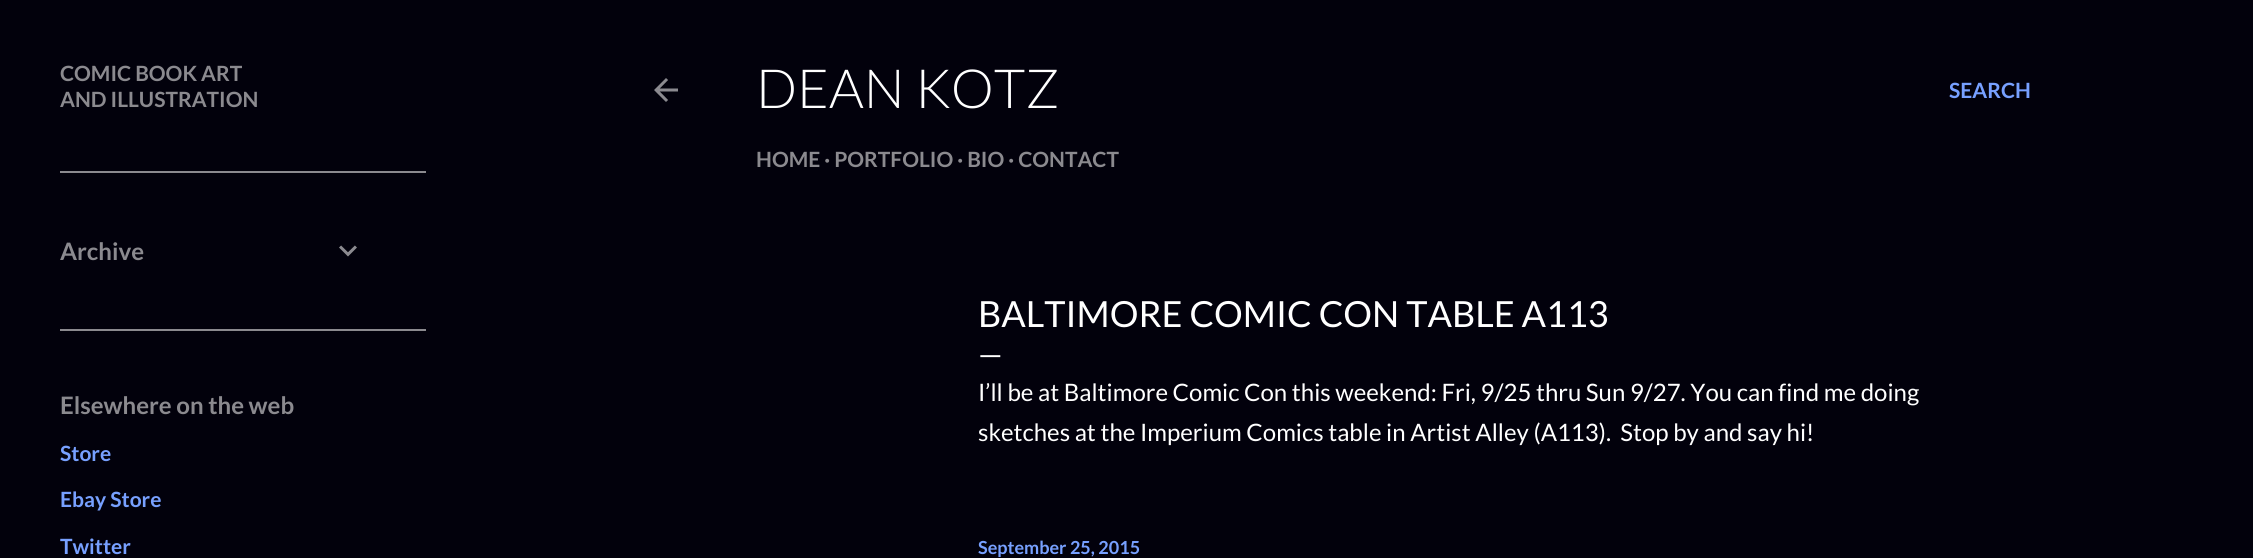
import math
import cairocffi as cairo

surface = cairo.ImageSurface(cairo.FORMAT_RGB24, 2253, 558)
ctx = cairo.Context(surface)
options = cairo.FontOptions()
options.set_hint_metrics(cairo.HINT_METRICS_OFF)
options.set_hint_style(cairo.HINT_STYLE_NONE)
ctx.set_font_options(options)
ctx.set_miter_limit(4)


def rgb(r, g, b):
    ctx.set_source_rgb(r / 255, g / 255, b / 255)


def face(family, size, italic, bold):
    ctx.select_font_face(family, cairo.FONT_SLANT_ITALIC if italic else cairo.FONT_SLANT_NORMAL, cairo.FONT_WEIGHT_BOLD if bold else cairo.FONT_WEIGHT_NORMAL)
    ctx.set_font_size(size)


def label(x, y, s):
    ctx.move_to(x, y)
    ctx.show_text(s)


def rect(x, y, w, h):
    ctx.rectangle(x, y, w, h)
    ctx.fill()


def image(path, x, y, w, h):
    ctx.save()
    ctx.set_source_surface(cairo.ImageSurface.create_from_png(path), x, y)
    ctx.rectangle(x, y, w, h)
    ctx.fill()
    ctx.restore()


rgb(2, 1, 12)
ctx.paint()
face('Lato', 21, 0, 1)
rgb(139, 138, 143)
label(60, 81, 'COMIC BOOK ART')
label(60, 107, 'AND ILLUSTRATION')
rect(60, 171, 366, 2)
face('Lato', 24, 0, 1)
label(60, 260, 'Archive')
image('image0.png', 339, 245, 18, 12)
rect(60, 329, 366, 2)
label(60, 414, 'Elsewhere on the web')
face('Lato', 21, 0, 1)
rgb(119, 160, 255)
label(60, 461, 'Store')
label(60, 507, 'Ebay Store')
label(60, 554, 'Twitter')
image('image1.png', 654, 78, 24, 24)
face('Lato Light', 54, 0, 0)
rgb(255, 255, 255)
label(756, 108, 'DEAN KOTZ')
face('Lato', 21, 0, 1)
rgb(139, 138, 143)
label(756, 167, 'HOME · PORTFOLIO · BIO · CONTACT')
rgb(119, 160, 255)
label(1949, 98, 'SEARCH')
face('Lato', 36, 0, 0)
rgb(255, 255, 255)
label(978, 327, 'BALTIMORE COMIC CON TABLE A113')
face('Lato', 30, 0, 0)
label(978, 365, '—')
face('Lato', 24, 0, 0)
label(978, 401, 'I’ll be at Baltimore Comic Con this weekend: Fri, 9/25 thru Sun 9/27. You can find me doing')
label(978, 441, 'sketches at the Imperium Comics table in Artist Alley (A113).  Stop by and say hi!')
face('Lato', 18, 0, 1)
rgb(119, 160, 255)
label(978, 554, 'September 25, 2015')
surface.write_to_png('render.png')
